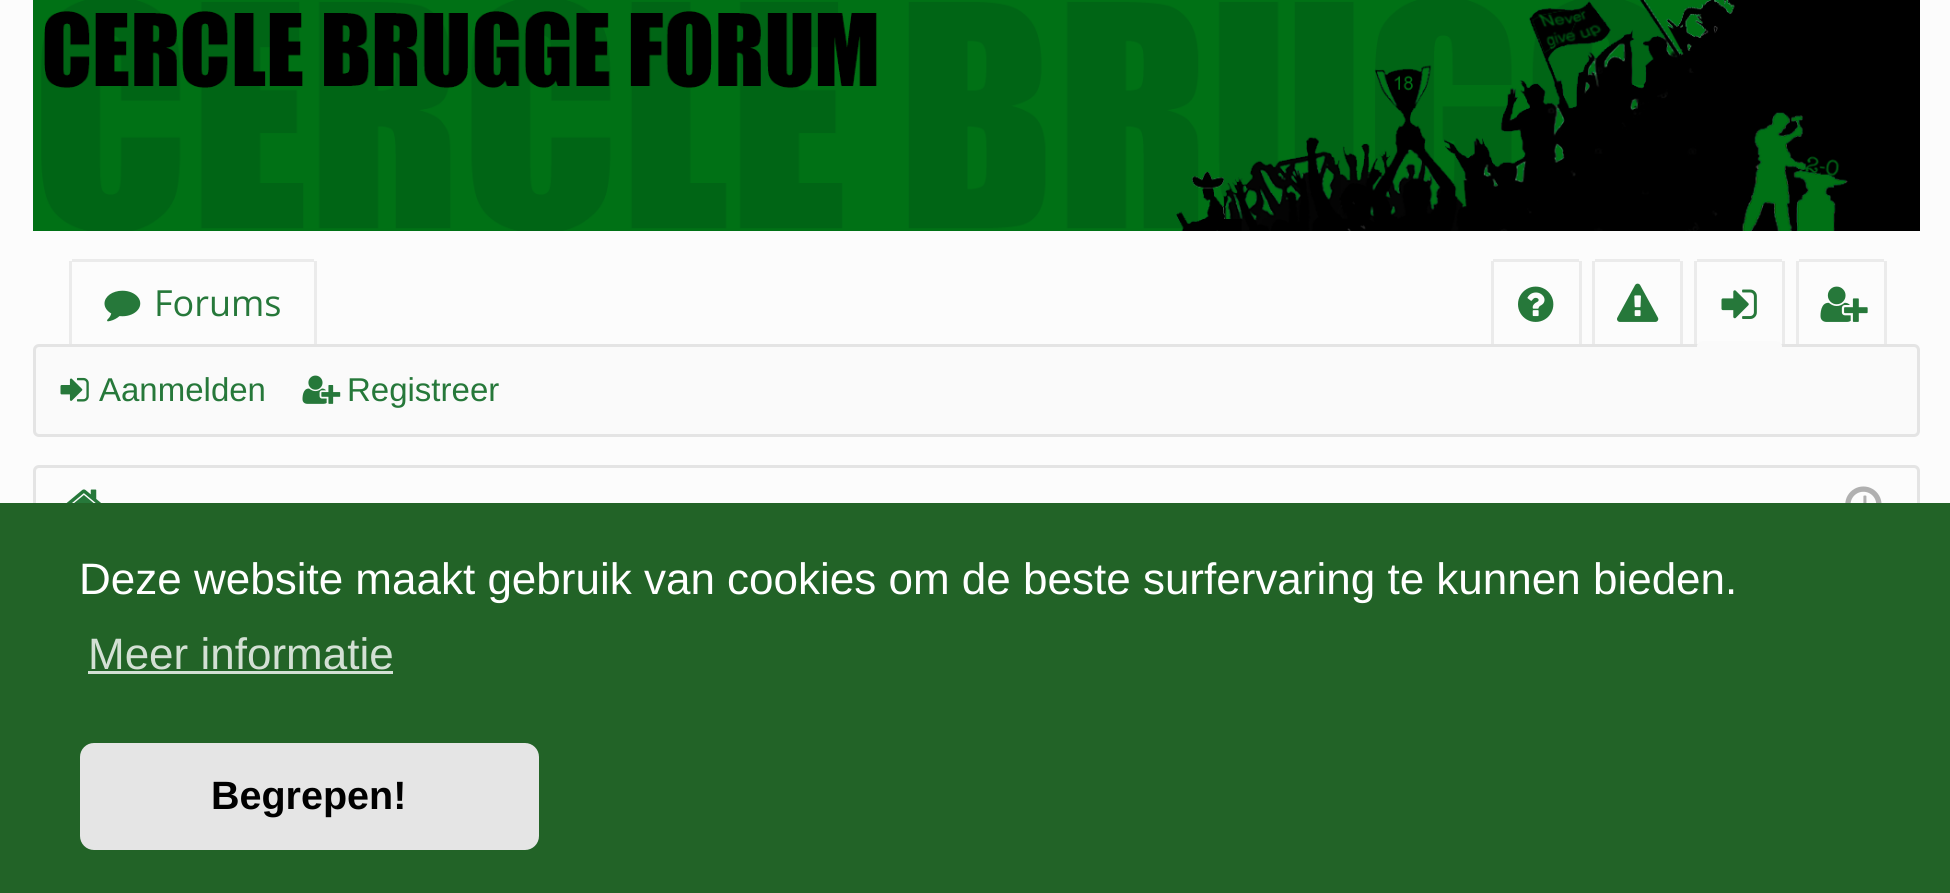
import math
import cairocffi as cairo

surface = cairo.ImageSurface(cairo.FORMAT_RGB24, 1950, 893)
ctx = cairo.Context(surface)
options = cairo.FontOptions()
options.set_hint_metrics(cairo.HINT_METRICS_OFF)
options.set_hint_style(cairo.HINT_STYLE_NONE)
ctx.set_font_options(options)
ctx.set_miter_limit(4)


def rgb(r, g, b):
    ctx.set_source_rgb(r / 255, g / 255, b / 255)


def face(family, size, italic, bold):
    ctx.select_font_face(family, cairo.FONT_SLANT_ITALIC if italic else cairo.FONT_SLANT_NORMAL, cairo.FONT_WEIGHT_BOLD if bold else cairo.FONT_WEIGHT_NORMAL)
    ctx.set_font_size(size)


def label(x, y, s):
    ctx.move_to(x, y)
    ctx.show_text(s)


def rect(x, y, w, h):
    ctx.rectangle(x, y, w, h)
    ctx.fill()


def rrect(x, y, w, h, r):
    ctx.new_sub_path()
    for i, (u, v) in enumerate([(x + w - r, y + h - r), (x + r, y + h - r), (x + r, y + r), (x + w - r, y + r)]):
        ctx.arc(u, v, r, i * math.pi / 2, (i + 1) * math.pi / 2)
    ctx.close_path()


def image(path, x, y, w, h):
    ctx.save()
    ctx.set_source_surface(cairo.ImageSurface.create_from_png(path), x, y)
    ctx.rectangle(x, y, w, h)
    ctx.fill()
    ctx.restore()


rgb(252, 252, 252)
ctx.paint()
rgb(0, 0, 0)
rect(1848, 0, 72, 231)
image('image0.png', 33, 0, 1815, 231)
rgb(235, 235, 235)
rect(72, 259, 242, 3)
rect(314, 261, 3, 86)
rect(69, 261, 3, 86)
image('image1.png', 104, 290, 37, 32)
face('Open Sans', 36, 0, 0)
rgb(38, 120, 58)
label(154, 316, 'Forums')
rgb(235, 235, 235)
rect(1493, 259, 86, 3)
rect(1579, 261, 3, 86)
rect(1491, 261, 3, 86)
image('image2.png', 1518, 286, 36, 36)
rect(1595, 259, 85, 3)
rect(1680, 261, 3, 86)
rect(1592, 261, 3, 86)
image('image3.png', 1617, 283, 42, 39)
rect(1697, 259, 85, 3)
rect(1782, 261, 3, 86)
rect(1694, 261, 3, 86)
image('image4.png', 1721, 289, 36, 30)
rect(1884, 261, 3, 86)
rect(1796, 261, 3, 86)
rgb(250, 250, 250)
rrect(34.5, 345.5, 1884, 90, 4.5)
ctx.fill_preserve()
rgb(228, 228, 228)
ctx.set_line_width(3)
ctx.stroke()
rgb(250, 250, 250)
ctx.new_path()
ctx.move_to(1702.5, 341)
ctx.line_to(1776.5, 341)
ctx.curve_to(1779.5, 341, 1782, 343.5, 1782, 346.5)
ctx.line_to(1782, 352)
ctx.line_to(1697, 352)
ctx.line_to(1697, 346.5)
ctx.curve_to(1697, 343.5, 1699.5, 341, 1702.5, 341)
ctx.close_path()
ctx.fill()
rgb(235, 235, 235)
rect(1799, 259, 85, 3)
image('image5.png', 1820, 286, 48, 36)
image('image6.png', 60, 377, 29, 25)
face('Liberation Sans', 33, 0, 0)
rgb(38, 120, 58)
label(99, 401, 'Aanmelden')
image('image7.png', 302, 375, 39, 29)
label(347, 401, 'Registreer')
rrect(34.5, 466.5, 1884, 79, 4.5)
rgb(228, 228, 228)
ctx.stroke()
image('image8.png', 66, 489, 35, 14)
image('image9.png', 1845, 486, 37, 17)
rgb(34, 99, 39)
rect(0, 503, 1950, 390)
face('Liberation Sans', 44, 0, 0)
rgb(255, 255, 255)
label(79, 594, 'Deze website maakt gebruik van cookies om de beste surfervaring te kunnen bieden.')
rgb(211, 224, 212)
label(88, 669, 'Meer informatie')
rect(88, 671, 305, 3)
rgb(229, 229, 229)
rrect(80, 743, 459, 107, 14)
ctx.fill()
face('Liberation Sans', 39.5, 0, 1)
rgb(0, 0, 0)
label(211, 809, 'Begrepen!')
surface.write_to_png('render.png')
